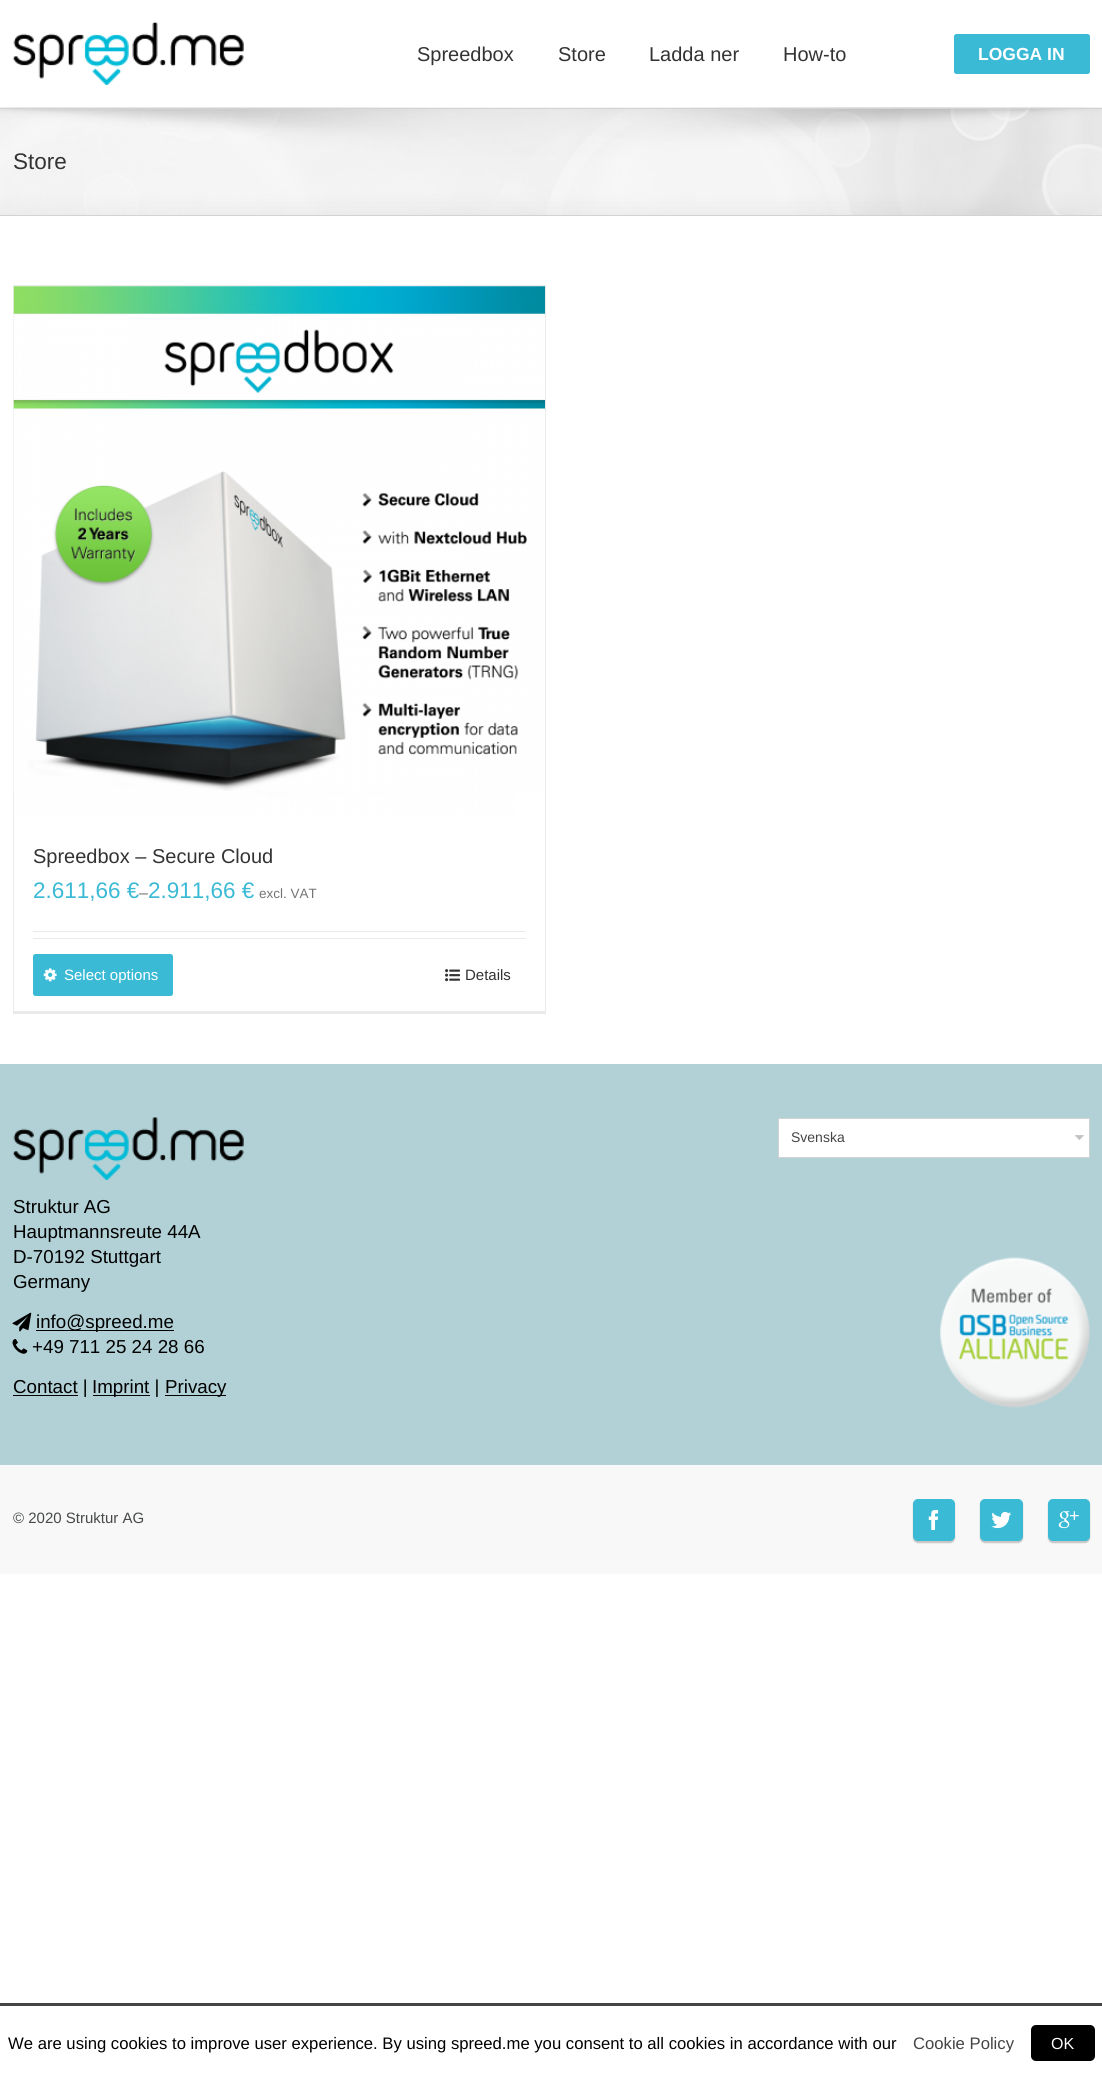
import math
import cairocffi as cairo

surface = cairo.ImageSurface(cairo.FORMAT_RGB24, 1102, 2081)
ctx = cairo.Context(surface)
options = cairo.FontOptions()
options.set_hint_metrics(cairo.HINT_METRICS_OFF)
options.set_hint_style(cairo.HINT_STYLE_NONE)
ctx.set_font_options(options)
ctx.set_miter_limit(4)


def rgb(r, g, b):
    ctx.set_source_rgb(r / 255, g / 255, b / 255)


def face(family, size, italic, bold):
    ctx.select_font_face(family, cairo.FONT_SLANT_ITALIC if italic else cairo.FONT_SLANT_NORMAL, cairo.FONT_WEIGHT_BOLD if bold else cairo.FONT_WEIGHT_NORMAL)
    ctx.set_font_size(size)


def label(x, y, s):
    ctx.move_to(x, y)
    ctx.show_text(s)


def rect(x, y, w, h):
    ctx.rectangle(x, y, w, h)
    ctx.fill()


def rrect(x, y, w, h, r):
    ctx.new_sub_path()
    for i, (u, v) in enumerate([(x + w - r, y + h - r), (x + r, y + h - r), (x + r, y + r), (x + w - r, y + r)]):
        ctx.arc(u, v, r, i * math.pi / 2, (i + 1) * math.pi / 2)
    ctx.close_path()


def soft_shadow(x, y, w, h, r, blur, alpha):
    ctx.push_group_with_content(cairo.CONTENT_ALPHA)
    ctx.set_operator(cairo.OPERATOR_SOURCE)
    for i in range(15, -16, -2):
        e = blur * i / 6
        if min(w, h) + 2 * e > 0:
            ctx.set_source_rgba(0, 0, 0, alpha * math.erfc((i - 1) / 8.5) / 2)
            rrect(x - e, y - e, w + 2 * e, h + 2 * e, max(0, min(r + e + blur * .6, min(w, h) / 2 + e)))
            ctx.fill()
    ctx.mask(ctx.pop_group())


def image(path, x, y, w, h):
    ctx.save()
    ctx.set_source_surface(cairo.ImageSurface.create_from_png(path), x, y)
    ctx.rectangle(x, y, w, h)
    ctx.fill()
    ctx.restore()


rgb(255, 255, 255)
ctx.paint()
image('image0.png', 13, 22, 231, 63)
face('Liberation Sans', 20, 0, 0)
rgb(51, 51, 51)
label(417, 61, 'Spreedbox')
label(558, 61, 'Store')
label(649, 61, 'Ladda ner')
label(783, 61, 'How-to')
rgb(59, 186, 213)
rrect(954, 34, 136, 40, 2.5)
ctx.fill()
face('Liberation Sans', 17.5, 0, 1)
rgb(255, 255, 255)
label(978, 60, 'LOGGA IN')
rgb(246, 246, 246)
rect(0, 109, 1102, 106)
image('image1.png', 0, 107, 1102, 108)
rgb(210, 211, 212)
rect(0, 108, 1102, 1)
rect(0, 215, 1102, 1)
face('Liberation Sans', 22.5, 0, 0)
rgb(51, 51, 51)
label(13, 169, 'Store')
rgb(235, 234, 234)
rect(13, 285, 533, 1)
rect(545, 285, 1, 729)
rect(13, 1011, 533, 3)
rect(13, 285, 1, 729)
image('image3.png', 13, 287, 501, 530)
image('image2.png', 13, 286, 532, 505)
rect(33, 931, 493, 1)
face('Liberation Sans', 20, 0, 0)
rgb(51, 51, 51)
label(33, 863, 'Spreedbox – Secure Cloud')
face('Liberation Sans', 22.5, 0, 0)
rgb(59, 186, 213)
label(33, 898, '2.611,66 €')
face('Liberation Sans', 16, 0, 0)
rgb(116, 116, 116)
label(139, 898, '–')
face('Liberation Sans', 22.5, 0, 0)
rgb(59, 186, 213)
label(148, 898, '2.911,66 €')
face('Liberation Sans', 13.5, 0, 0)
rgb(116, 116, 116)
label(259, 898, 'excl. VAT')
rgb(235, 234, 234)
rect(33, 938, 493, 1)
rgb(59, 186, 213)
rrect(33, 954, 140, 42, 2.5)
ctx.fill()
image('image4.png', 43, 968, 14, 14)
face('Liberation Sans', 15, 0, 0)
rgb(255, 255, 255)
label(64, 980, 'Select options')
image('image5.png', 445, 969, 15, 13)
rgb(51, 51, 51)
label(465, 980, 'Details')
rgb(177, 209, 214)
rect(0, 1064, 1102, 401)
rgb(255, 255, 255)
rect(779, 1119, 310, 38)
image('image6.png', 1075, 1135, 9, 6)
ctx.rectangle(778.5, 1118.5, 311, 39)
rgb(210, 210, 210)
ctx.set_line_width(1)
ctx.stroke()
face('Liberation Sans', 14, 0, 0)
rgb(68, 68, 68)
label(791, 1142, 'Svenska')
image('image7.png', 940, 1257, 150, 151)
image('image8.png', 13, 1117, 231, 63)
face('Liberation Sans', 18.75, 0, 0)
rgb(0, 0, 0)
label(13, 1213, 'Struktur AG')
label(13, 1238, 'Hauptmannsreute 44A')
label(13, 1263, 'D-70192 Stuttgart')
label(13, 1288, 'Germany')
image('image9.png', 12, 1312, 20, 20)
rect(36, 1330, 138, 1)
label(36, 1328, 'info@spreed.me')
image('image10.png', 12, 1339, 16, 15)
label(32, 1353, '+49 711 25 24 28 66')
rect(13, 1395, 65, 1)
label(13, 1393, 'Contact |')
rect(93, 1395, 57, 1)
label(92, 1393, 'Imprint |')
rect(165, 1395, 61, 1)
label(165, 1393, 'Privacy')
rgb(248, 248, 248)
rect(0, 1465, 1102, 109)
face('Liberation Sans', 15, 0, 0)
rgb(70, 73, 74)
label(13, 1523, '© 2020 Struktur AG')
rgb(0, 0, 0)
soft_shadow(913, 1500, 42, 43, 5, 0.5, 0.2)
rgb(59, 186, 213)
rrect(913.5, 1499.5, 41, 41, 4.5)
ctx.fill_preserve()
ctx.stroke()
image('image11.png', 928, 1510, 11, 20)
rgb(0, 0, 0)
soft_shadow(980, 1500, 43, 43, 5, 0.5, 0.2)
rgb(59, 186, 213)
rrect(980.5, 1499.5, 42, 41, 4.5)
ctx.fill_preserve()
ctx.stroke()
image('image12.png', 991, 1511, 21, 18)
rgb(0, 0, 0)
soft_shadow(1048, 1500, 42, 43, 5, 0.5, 0.2)
rgb(59, 186, 213)
rrect(1048.5, 1499.5, 41, 41, 4.5)
ctx.fill_preserve()
ctx.stroke()
image('image13.png', 1058, 1511, 21, 18)
rgb(68, 68, 68)
rect(0, 2003, 1102, 3)
face('Liberation Sans', 16.67, 0, 0)
rgb(0, 0, 0)
label(8, 2049, 'We are using cookies to improve user experience. By using spreed.me you consent to all cookies in accordance with our')
rgb(68, 68, 68)
label(913, 2049, 'Cookie Policy')
rgb(0, 0, 0)
rrect(1031, 2025, 64, 36, 5)
ctx.fill()
face('Liberation Sans', 16, 0, 0)
rgb(255, 255, 255)
label(1051, 2049, 'OK')
surface.write_to_png('render.png')
